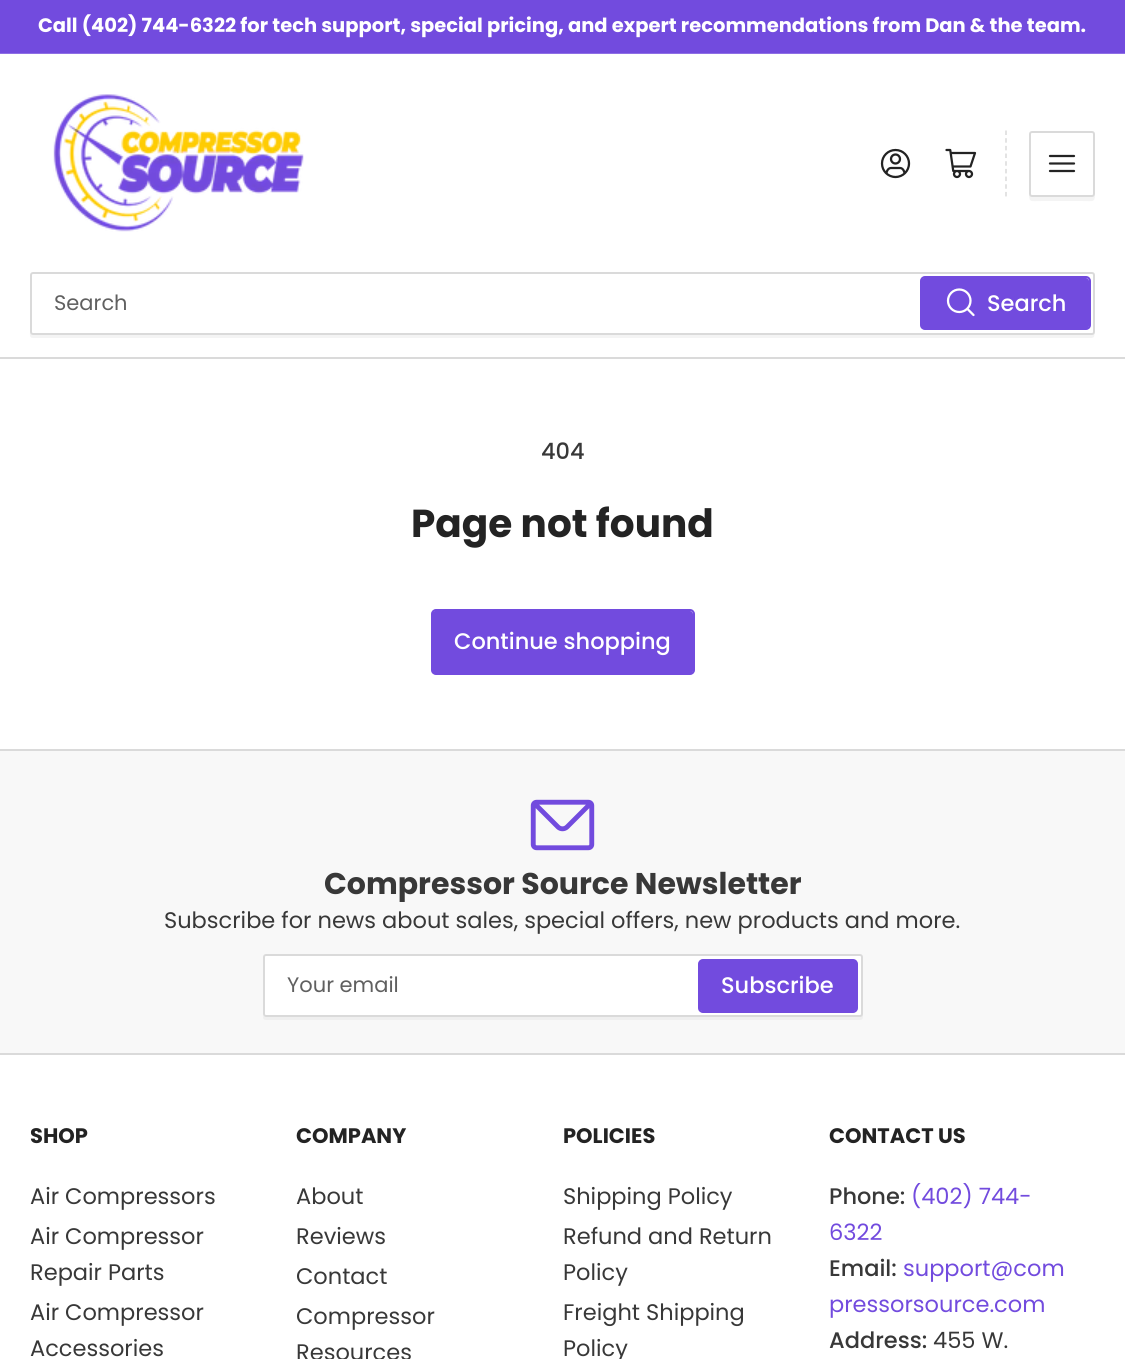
import math
import cairocffi as cairo

surface = cairo.ImageSurface(cairo.FORMAT_RGB24, 1125, 1359)
ctx = cairo.Context(surface)
options = cairo.FontOptions()
options.set_hint_metrics(cairo.HINT_METRICS_OFF)
options.set_hint_style(cairo.HINT_STYLE_NONE)
ctx.set_font_options(options)
ctx.set_miter_limit(4)


def rgb(r, g, b):
    ctx.set_source_rgb(r / 255, g / 255, b / 255)


def face(family, size, italic, bold):
    ctx.select_font_face(family, cairo.FONT_SLANT_ITALIC if italic else cairo.FONT_SLANT_NORMAL, cairo.FONT_WEIGHT_BOLD if bold else cairo.FONT_WEIGHT_NORMAL)
    ctx.set_font_size(size)


def label(x, y, s):
    ctx.move_to(x, y)
    ctx.show_text(s)


def rect(x, y, w, h):
    ctx.rectangle(x, y, w, h)
    ctx.fill()


def rrect(x, y, w, h, r):
    ctx.new_sub_path()
    for i, (u, v) in enumerate([(x + w - r, y + h - r), (x + r, y + h - r), (x + r, y + r), (x + w - r, y + r)]):
        ctx.arc(u, v, r, i * math.pi / 2, (i + 1) * math.pi / 2)
    ctx.close_path()


def image(path, x, y, w, h):
    ctx.save()
    ctx.set_source_surface(cairo.ImageSurface.create_from_png(path), x, y)
    ctx.rectangle(x, y, w, h)
    ctx.fill()
    ctx.restore()


rgb(255, 255, 255)
ctx.paint()
rgb(114, 75, 222)
rect(0, 0, 1125, 53)
rgb(142, 111, 229)
rect(0, 53, 1125, 1)
face('Poppins', 19.5, 0, 1)
rgb(255, 255, 255)
label(38, 32, 'Call (402) 744-6322 for tech support, special pricing, and expert recommendations from Dan & the team.')
rgb(218, 218, 218)
rect(0, 357, 1125, 2)
image('image0.png', 53, 94, 251, 138)
image('image1.png', 880, 148, 31, 31)
image('image2.png', 945, 148, 32, 31)
ctx.new_path()
ctx.move_to(1006, 130.5)
ctx.line_to(1006, 196.5)
ctx.set_line_width(1.5)
ctx.set_dash([4.5, 3.18])
ctx.stroke()
rgb(244, 244, 244)
ctx.new_path()
ctx.move_to(1029, 194)
ctx.curve_to(1029, 203, 1031, 201, 1042, 201)
ctx.line_to(1082, 201)
ctx.curve_to(1093, 201, 1095, 203, 1095, 194)
ctx.curve_to(1095, 195, 1094, 196, 1092, 196)
ctx.line_to(1032, 196)
ctx.curve_to(1030, 196, 1029, 195, 1029, 194)
ctx.close_path()
ctx.fill()
rrect(1030, 132, 64, 64, 2)
rgb(218, 218, 218)
ctx.set_line_width(2)
ctx.set_dash([])
ctx.stroke()
image('image3.png', 1048, 154, 28, 19)
rgb(244, 244, 244)
ctx.new_path()
ctx.move_to(30, 332)
ctx.curve_to(30, 334, 29, 338, 33, 338)
ctx.line_to(1092, 338)
ctx.line_to(1094, 337)
ctx.line_to(1095, 332)
ctx.curve_to(1095, 333, 1094, 334, 1092, 334)
ctx.line_to(33, 334)
ctx.curve_to(31, 334, 30, 333, 30, 332)
ctx.close_path()
ctx.fill()
rgb(255, 255, 255)
rrect(31, 273, 1063, 61, 2)
ctx.fill_preserve()
rgb(218, 218, 218)
ctx.stroke()
face('Poppins', 21, 0, 0)
rgb(96, 96, 96)
label(54, 310, 'Search')
rrect(921, 277, 169, 52, 4)
rgb(114, 75, 222)
ctx.stroke()
rrect(921, 278, 168, 51, 3)
ctx.fill()
image('image4.png', 946, 288, 29, 29)
face('Poppins Medium', 22.5, 0, 0)
rgb(255, 255, 255)
label(987, 311, 'Search')
rgb(56, 56, 56)
label(541, 459, '404')
face('Poppins', 39, 0, 1)
rgb(35, 35, 35)
label(411, 537, 'Page not found')
rrect(432, 610, 262, 64, 4)
rgb(114, 75, 222)
ctx.stroke()
rrect(432, 611, 261, 63, 3)
ctx.fill()
face('Poppins Medium', 22.5, 0, 0)
rgb(255, 255, 255)
label(454, 649, 'Continue shopping')
rgb(248, 248, 248)
rect(0, 751, 1125, 302)
rgb(218, 218, 218)
rect(0, 749, 1125, 2)
rect(0, 1053, 1125, 2)
image('image5.png', 530, 799, 65, 52)
face('Poppins', 30, 0, 1)
rgb(56, 56, 56)
label(324, 894, 'Compressor Source Newsletter')
face('Poppins', 22.5, 0, 0)
label(164, 928, 'Subscribe for news about sales, special offers, new products and more.')
rgb(239, 239, 239)
ctx.new_path()
ctx.move_to(263, 1016)
ctx.line_to(263, 1017)
ctx.curve_to(263, 1019, 264, 1020, 266, 1020)
ctx.line_to(860, 1020)
ctx.curve_to(862, 1020, 863, 1019, 863, 1017)
ctx.line_to(863, 960)
ctx.line_to(862, 958)
ctx.line_to(862, 1014)
ctx.curve_to(862, 1016, 861, 1017, 860, 1017)
ctx.line_to(266, 1017)
ctx.curve_to(264, 1017, 264, 1016, 263, 1016)
ctx.close_path()
ctx.fill()
rgb(255, 255, 255)
rrect(264, 955, 598, 61, 2)
ctx.fill_preserve()
rgb(218, 218, 218)
ctx.stroke()
face('Poppins', 21, 0, 0)
rgb(96, 96, 96)
label(287, 992, 'Your email')
rrect(699, 960, 158, 52, 4)
rgb(114, 75, 222)
ctx.stroke()
rrect(699, 960, 158, 51, 3)
ctx.fill()
face('Poppins Medium', 22.5, 0, 0)
rgb(255, 255, 255)
label(721, 993, 'Subscribe')
face('Poppins', 21, 0, 1)
rgb(35, 35, 35)
label(30, 1143, 'SHOP')
face('Poppins', 22.5, 0, 0)
rgb(56, 56, 56)
label(30, 1204, 'Air Compressors')
label(30, 1244, 'Air Compressor')
label(30, 1280, 'Repair Parts')
label(30, 1320, 'Air Compressor')
label(30, 1356, 'Accessories')
face('Poppins', 21, 0, 1)
rgb(35, 35, 35)
label(296, 1143, 'COMPANY')
face('Poppins', 22.5, 0, 0)
rgb(56, 56, 56)
label(296, 1204, 'About')
label(296, 1244, 'Reviews')
label(296, 1284, 'Contact')
label(296, 1324, 'Compressor')
label(296, 1360, 'Resources')
face('Poppins', 21, 0, 1)
rgb(35, 35, 35)
label(563, 1143, 'POLICIES')
face('Poppins', 22.5, 0, 0)
rgb(56, 56, 56)
label(563, 1204, 'Shipping Policy')
label(563, 1244, 'Refund and Return')
label(563, 1280, 'Policy')
label(563, 1320, 'Freight Shipping')
label(563, 1356, 'Policy')
face('Poppins', 21, 0, 1)
rgb(35, 35, 35)
label(829, 1143, 'CONTACT US')
face('Poppins Medium', 22.5, 0, 0)
rgb(56, 56, 56)
label(829, 1204, 'Phone:')
face('Poppins', 22.5, 0, 0)
rgb(114, 75, 222)
label(911, 1204, '(402) 744-')
label(829, 1240, '6322')
face('Poppins Medium', 22.5, 0, 0)
rgb(56, 56, 56)
label(829, 1276, 'Email:')
face('Poppins', 22.5, 0, 0)
rgb(114, 75, 222)
label(903, 1276, 'support@com')
label(829, 1312, 'pressorsource.com')
face('Poppins Medium', 22.5, 0, 0)
rgb(56, 56, 56)
label(829, 1348, 'Address:')
face('Poppins', 22.5, 0, 0)
label(933, 1348, '455 W.')
surface.write_to_png('render.png')
